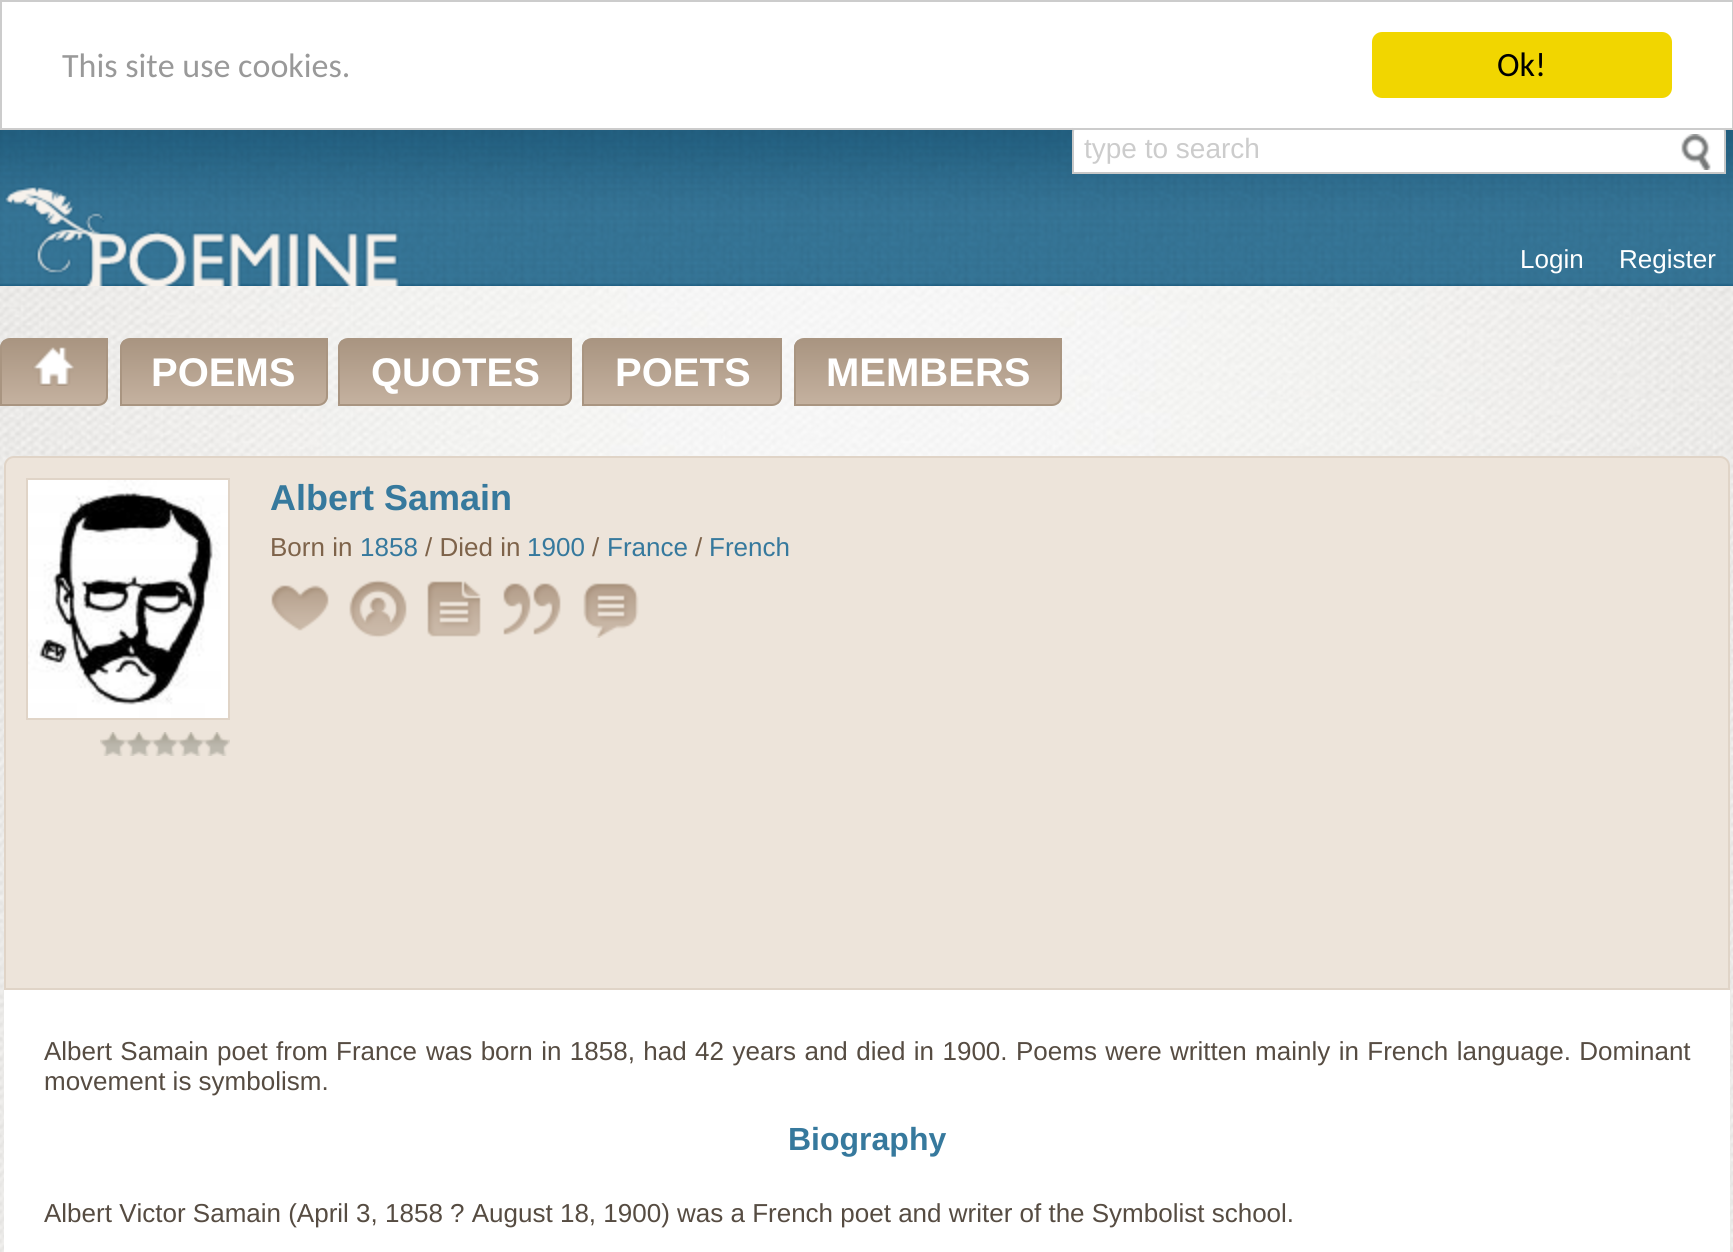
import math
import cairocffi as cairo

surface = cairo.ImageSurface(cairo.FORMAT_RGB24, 1733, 1252)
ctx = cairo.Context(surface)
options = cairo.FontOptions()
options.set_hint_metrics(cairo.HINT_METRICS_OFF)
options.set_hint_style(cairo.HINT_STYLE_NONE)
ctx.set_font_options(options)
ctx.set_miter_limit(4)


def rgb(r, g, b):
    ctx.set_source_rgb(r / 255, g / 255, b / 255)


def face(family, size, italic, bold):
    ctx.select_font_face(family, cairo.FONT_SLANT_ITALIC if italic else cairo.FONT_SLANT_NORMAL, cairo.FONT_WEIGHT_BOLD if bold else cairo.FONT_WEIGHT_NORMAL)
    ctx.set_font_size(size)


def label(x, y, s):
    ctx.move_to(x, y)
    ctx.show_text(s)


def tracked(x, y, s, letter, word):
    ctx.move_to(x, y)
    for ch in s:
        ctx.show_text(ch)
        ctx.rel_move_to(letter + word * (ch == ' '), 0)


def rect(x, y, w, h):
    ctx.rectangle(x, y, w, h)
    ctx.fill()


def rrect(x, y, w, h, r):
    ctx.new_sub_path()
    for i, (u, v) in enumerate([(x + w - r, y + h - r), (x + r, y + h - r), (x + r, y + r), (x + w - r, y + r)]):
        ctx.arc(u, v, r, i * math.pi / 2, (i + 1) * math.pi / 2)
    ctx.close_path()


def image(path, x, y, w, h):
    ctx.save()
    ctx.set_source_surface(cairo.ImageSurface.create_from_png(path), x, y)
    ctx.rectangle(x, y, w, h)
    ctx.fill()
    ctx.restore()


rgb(255, 255, 255)
ctx.paint()
image('image0.png', 0, 1226, 1733, 26)
image('image1.png', 0, 286, 1733, 940)
image('image2.png', 0, 130, 1733, 156)
rgb(255, 255, 255)
ctx.new_path()
ctx.move_to(1082, 123)
ctx.line_to(1716, 123)
ctx.curve_to(1721, 123, 1725, 127, 1725, 132)
ctx.line_to(1725, 173)
ctx.line_to(1073, 173)
ctx.line_to(1073, 132)
ctx.curve_to(1073, 127, 1077, 123, 1082, 123)
ctx.close_path()
ctx.fill_preserve()
rgb(200, 200, 200)
ctx.stroke()
rgb(255, 255, 255)
rect(1073, 122, 652, 6)
ctx.rectangle(1, 1, 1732, 128)
rgb(204, 204, 204)
ctx.stroke()
face('Carlito', 34, 0, 0)
rgb(153, 153, 153)
label(62, 77, 'This site use cookies.')
rgb(241, 214, 0)
rrect(1372, 32, 300, 66, 10)
ctx.fill()
rgb(0, 0, 0)
label(1497, 76, 'Ok!')
face('Liberation Sans', 28, 0, 0)
rgb(204, 204, 204)
label(1084, 158, 'type to search')
image('image3.png', 1681, 134, 30, 36)
image('image4.png', 4, 186, 396, 100)
face('Liberation Sans', 26, 0, 0)
rgb(255, 255, 255)
label(1520, 268, 'Login')
label(1619, 268, 'Register')
ctx.save()
ctx.new_path()
ctx.move_to(10, 338)
ctx.line_to(108, 338)
ctx.line_to(108, 396)
ctx.curve_to(108, 401.5, 103.5, 406, 98, 406)
ctx.line_to(0, 406)
ctx.line_to(0, 348)
ctx.curve_to(0, 342.5, 4.5, 338, 10, 338)
ctx.close_path()
ctx.clip()
gradient = cairo.LinearGradient(54, 340, 54, 404)
gradient.add_color_stop_rgba(0, 0.663, 0.584, 0.506, 1)
gradient.add_color_stop_rgba(1, 0.769, 0.694, 0.624, 1)
ctx.set_source(gradient)
rect(0, 340, 108, 64)
ctx.restore()
ctx.new_path()
ctx.move_to(10, 339)
ctx.line_to(107, 339)
ctx.line_to(107, 396)
ctx.curve_to(107, 401, 103, 405, 98, 405)
ctx.line_to(1, 405)
ctx.line_to(1, 348)
ctx.curve_to(1, 343, 5, 339, 10, 339)
ctx.close_path()
rgb(169, 149, 129)
ctx.stroke()
image('image5.png', 32, 347, 42, 39)
ctx.save()
ctx.new_path()
ctx.move_to(130, 338)
ctx.line_to(328, 338)
ctx.line_to(328, 396)
ctx.curve_to(328, 401.5, 323.5, 406, 318, 406)
ctx.line_to(120, 406)
ctx.line_to(120, 348)
ctx.curve_to(120, 342.5, 124.5, 338, 130, 338)
ctx.close_path()
ctx.clip()
gradient = cairo.LinearGradient(224, 340, 224, 404)
gradient.add_color_stop_rgba(0, 0.663, 0.584, 0.506, 1)
gradient.add_color_stop_rgba(1, 0.769, 0.694, 0.624, 1)
ctx.set_source(gradient)
rect(120, 340, 208, 64)
ctx.restore()
ctx.new_path()
ctx.move_to(130, 339)
ctx.line_to(327, 339)
ctx.line_to(327, 396)
ctx.curve_to(327, 401, 323, 405, 318, 405)
ctx.line_to(121, 405)
ctx.line_to(121, 348)
ctx.curve_to(121, 343, 125, 339, 130, 339)
ctx.close_path()
ctx.stroke()
face('Liberation Sans', 40, 0, 1)
rgb(255, 255, 255)
label(151, 386, 'POEMS')
ctx.save()
ctx.new_path()
ctx.move_to(348, 338)
ctx.line_to(572, 338)
ctx.line_to(572, 396)
ctx.curve_to(572, 401.5, 567.5, 406, 562, 406)
ctx.line_to(338, 406)
ctx.line_to(338, 348)
ctx.curve_to(338, 342.5, 342.5, 338, 348, 338)
ctx.close_path()
ctx.clip()
gradient = cairo.LinearGradient(455, 340, 455, 404)
gradient.add_color_stop_rgba(0, 0.663, 0.584, 0.506, 1)
gradient.add_color_stop_rgba(1, 0.769, 0.694, 0.624, 1)
ctx.set_source(gradient)
rect(338, 340, 234, 64)
ctx.restore()
ctx.new_path()
ctx.move_to(348, 339)
ctx.line_to(571, 339)
ctx.line_to(571, 396)
ctx.curve_to(571, 401, 567, 405, 562, 405)
ctx.line_to(339, 405)
ctx.line_to(339, 348)
ctx.curve_to(339, 343, 343, 339, 348, 339)
ctx.close_path()
rgb(169, 149, 129)
ctx.stroke()
rgb(255, 255, 255)
label(371, 386, 'QUOTES')
ctx.save()
ctx.new_path()
ctx.move_to(592, 338)
ctx.line_to(782, 338)
ctx.line_to(782, 396)
ctx.curve_to(782, 401.5, 777.5, 406, 772, 406)
ctx.line_to(582, 406)
ctx.line_to(582, 348)
ctx.curve_to(582, 342.5, 586.5, 338, 592, 338)
ctx.close_path()
ctx.clip()
gradient = cairo.LinearGradient(682, 340, 682, 404)
gradient.add_color_stop_rgba(0, 0.663, 0.584, 0.506, 1)
gradient.add_color_stop_rgba(1, 0.769, 0.694, 0.624, 1)
ctx.set_source(gradient)
rect(582, 340, 200, 64)
ctx.restore()
ctx.new_path()
ctx.move_to(592, 339)
ctx.line_to(781, 339)
ctx.line_to(781, 396)
ctx.curve_to(781, 401, 777, 405, 772, 405)
ctx.line_to(583, 405)
ctx.line_to(583, 348)
ctx.curve_to(583, 343, 587, 339, 592, 339)
ctx.close_path()
rgb(169, 149, 129)
ctx.stroke()
rgb(255, 255, 255)
label(615, 386, 'POETS')
ctx.save()
ctx.new_path()
ctx.move_to(804, 338)
ctx.line_to(1062, 338)
ctx.line_to(1062, 396)
ctx.curve_to(1062, 401.5, 1057.5, 406, 1052, 406)
ctx.line_to(794, 406)
ctx.line_to(794, 348)
ctx.curve_to(794, 342.5, 798.5, 338, 804, 338)
ctx.close_path()
ctx.clip()
gradient = cairo.LinearGradient(928, 340, 928, 404)
gradient.add_color_stop_rgba(0, 0.663, 0.584, 0.506, 1)
gradient.add_color_stop_rgba(1, 0.769, 0.694, 0.624, 1)
ctx.set_source(gradient)
rect(794, 340, 268, 64)
ctx.restore()
ctx.new_path()
ctx.move_to(804, 339)
ctx.line_to(1061, 339)
ctx.line_to(1061, 396)
ctx.curve_to(1061, 401, 1057, 405, 1052, 405)
ctx.line_to(795, 405)
ctx.line_to(795, 348)
ctx.curve_to(795, 343, 799, 339, 804, 339)
ctx.close_path()
rgb(169, 149, 129)
ctx.stroke()
rgb(255, 255, 255)
label(826, 386, 'MEMBERS')
rgb(237, 228, 218)
ctx.new_path()
ctx.move_to(14, 457)
ctx.line_to(1720, 457)
ctx.curve_to(1725, 457, 1729, 461, 1729, 466)
ctx.line_to(1729, 989)
ctx.line_to(5, 989)
ctx.line_to(5, 466)
ctx.curve_to(5, 461, 9, 457, 14, 457)
ctx.close_path()
ctx.fill_preserve()
rgb(224, 212, 199)
ctx.stroke()
ctx.rectangle(27, 479, 202, 240)
ctx.stroke()
image('image6.png', 28, 480, 200, 238)
image('image7.png', 100, 732, 26, 24)
image('image7.png', 126, 732, 26, 24)
image('image7.png', 152, 732, 26, 24)
image('image7.png', 178, 732, 26, 24)
image('image7.png', 204, 732, 26, 24)
face('Liberation Sans', 36, 0, 1)
rgb(54, 121, 157)
label(270, 510, 'Albert Samain')
face('Liberation Sans', 26, 0, 0)
rgb(126, 99, 74)
label(270, 556, 'Born in')
rgb(54, 121, 157)
label(360, 556, '1858')
rgb(126, 99, 74)
label(425, 556, '/ Died in')
rgb(54, 121, 157)
label(527, 556, '1900')
rgb(126, 99, 74)
label(592, 556, '/')
rgb(54, 121, 157)
label(607, 556, 'France')
rgb(126, 99, 74)
label(695, 556, '/')
rgb(54, 121, 157)
label(709, 556, 'French')
image('image8.png', 271, 585, 58, 46)
image('image9.png', 349, 580, 58, 58)
image('image10.png', 427, 581, 54, 56)
image('image11.png', 503, 583, 58, 52)
image('image12.png', 583, 583, 56, 55)
rgb(255, 255, 255)
rect(4, 990, 1726, 262)
rgb(86, 76, 66)
tracked(44, 1060, 'Albert Samain', 0, 1.2)
label(217, 1060, 'poet')
label(276, 1060, 'from')
label(336, 1060, 'France')
tracked(426, 1060, 'was born in 1858, had 42 years and died in 1900. Poems were written mainly in French language. Dominant', 0, 1.2)
label(44, 1090, 'movement is symbolism.')
face('Liberation Sans', 32, 0, 1)
rgb(54, 121, 157)
label(788, 1150, 'Biography')
face('Liberation Sans', 26, 0, 0)
rgb(86, 76, 66)
label(44, 1222, 'Albert Victor Samain (April 3, 1858 ? August 18, 1900) was a French poet and writer of the Symbolist school.')
surface.write_to_png('render.png')
